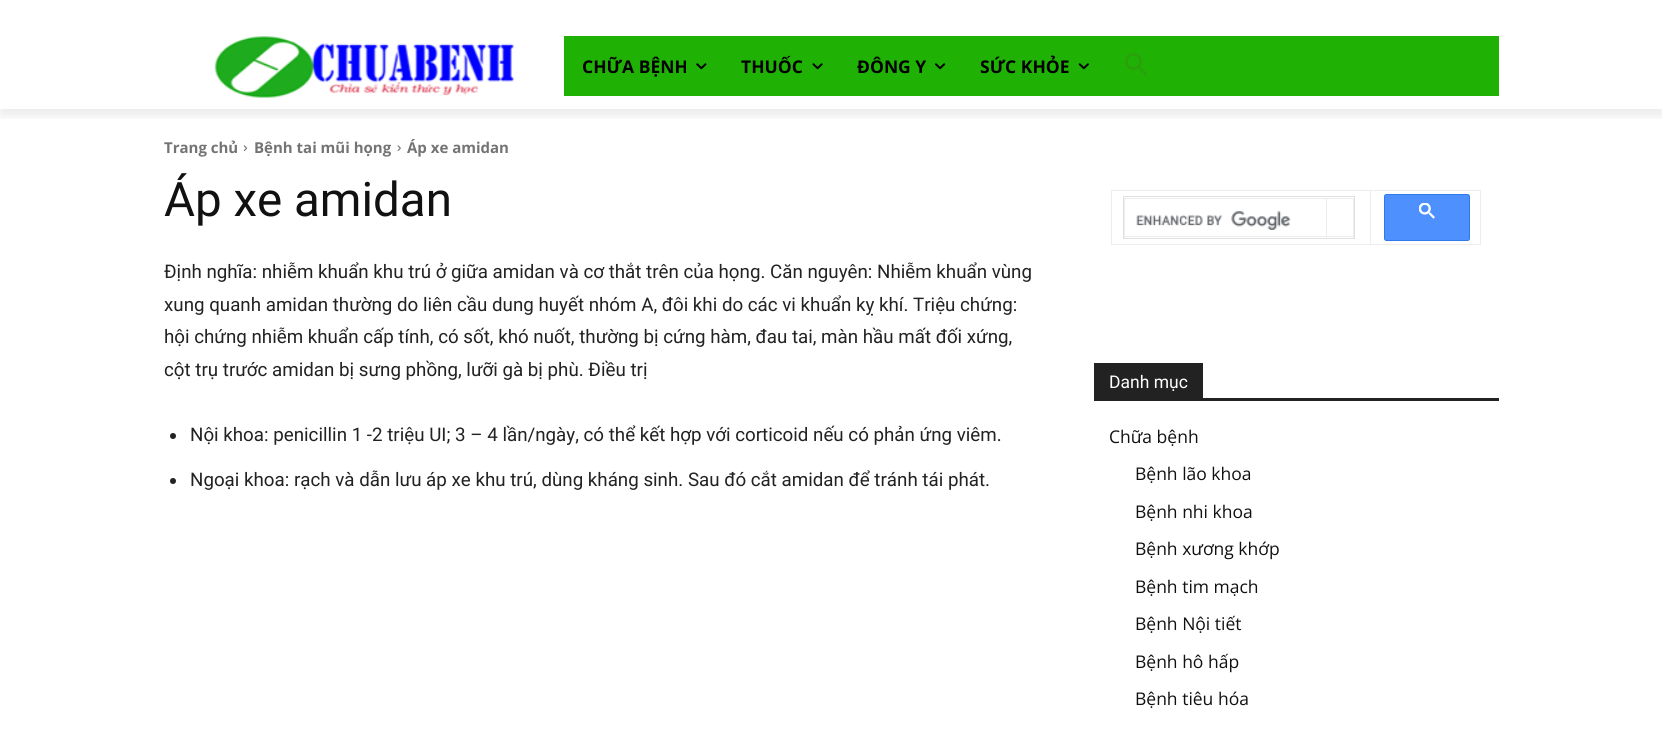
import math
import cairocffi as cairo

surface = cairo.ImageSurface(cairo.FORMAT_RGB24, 1662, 736)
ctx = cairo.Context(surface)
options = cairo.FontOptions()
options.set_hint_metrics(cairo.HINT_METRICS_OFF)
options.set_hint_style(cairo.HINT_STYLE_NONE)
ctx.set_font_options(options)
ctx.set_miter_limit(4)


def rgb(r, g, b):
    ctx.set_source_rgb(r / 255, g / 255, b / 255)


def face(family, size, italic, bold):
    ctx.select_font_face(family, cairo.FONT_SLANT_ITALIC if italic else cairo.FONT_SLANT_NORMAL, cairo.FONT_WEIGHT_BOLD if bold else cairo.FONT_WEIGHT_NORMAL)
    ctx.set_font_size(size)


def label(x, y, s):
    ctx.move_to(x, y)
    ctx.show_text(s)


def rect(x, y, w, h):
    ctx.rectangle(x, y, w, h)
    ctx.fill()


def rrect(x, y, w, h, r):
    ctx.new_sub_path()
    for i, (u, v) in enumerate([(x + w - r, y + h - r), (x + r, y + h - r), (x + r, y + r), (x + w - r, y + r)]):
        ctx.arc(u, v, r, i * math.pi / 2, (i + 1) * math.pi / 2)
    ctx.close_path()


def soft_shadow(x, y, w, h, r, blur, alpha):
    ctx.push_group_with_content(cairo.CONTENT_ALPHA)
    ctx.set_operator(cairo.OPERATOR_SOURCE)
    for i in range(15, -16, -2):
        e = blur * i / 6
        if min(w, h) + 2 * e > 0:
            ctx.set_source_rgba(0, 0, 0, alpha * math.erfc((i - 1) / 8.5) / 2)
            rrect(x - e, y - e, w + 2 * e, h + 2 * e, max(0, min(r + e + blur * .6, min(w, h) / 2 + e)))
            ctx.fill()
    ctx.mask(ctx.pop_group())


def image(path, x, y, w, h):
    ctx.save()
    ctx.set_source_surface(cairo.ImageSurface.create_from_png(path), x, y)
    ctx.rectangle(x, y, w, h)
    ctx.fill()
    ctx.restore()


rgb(255, 255, 255)
ctx.paint()
image('image0.png', 214, 36, 300, 62)
rgb(31, 178, 5)
rect(564, 36, 935, 60)
ctx.save()
ctx.rectangle(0, 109, 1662, 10)
ctx.clip()
rgb(0, 0, 0)
soft_shadow(0, 8, 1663, 108, 0, 5, 0.08)
ctx.restore()
face('Open Sans', 17.5, 0, 1)
rgb(0, 0, 0)
label(582, 73, 'CHỮA BỆNH')
image('image1.png', 696, 63, 11, 7)
label(741, 73, 'THUỐC')
image('image2.png', 812, 63, 11, 7)
label(857, 73, 'ĐÔNG Y')
image('image3.png', 935, 63, 11, 7)
label(980, 73, 'SỨC KHỎE')
image('image4.png', 1078, 63, 11, 7)
image('image5.png', 1125, 53, 22, 23)
face('Open Sans', 15, 0, 1)
rgb(116, 116, 116)
label(164, 153, 'Trang chủ')
image('image6.png', 243, 145, 5, 7)
label(254, 153, 'Bệnh tai mũi họng')
image('image7.png', 397, 145, 4, 6)
label(407, 153, 'Áp xe amidan')
face('Roboto', 47.5, 0, 0)
rgb(17, 17, 17)
label(164, 216, 'Áp xe amidan')
face('Roboto', 18.75, 0, 0)
rgb(34, 34, 34)
label(164, 278, 'Định nghĩa: nhiễm khuẩn khu trú ở giữa amidan và cơ thắt trên của họng. Căn nguyên: Nhiễm khuẩn vùng')
label(164, 311, 'xung quanh amidan thường do liên cầu dung huyết nhóm A, đôi khi do các vi khuẩn kỵ khí. Triệu chứng:')
label(164, 343, 'hội chứng nhiễm khuẩn cấp tính, có sốt, khó nuốt, thường bị cứng hàm, đau tai, màn hầu mất đối xứng,')
label(164, 376, 'cột trụ trước amidan bị sưng phồng, lưỡi gà bị phù. Điều trị')
ctx.new_path()
ctx.arc(173, 436, 3, 0, 2 * math.pi)
ctx.fill()
label(190, 441, 'Nội khoa: penicillin 1 -2 triệu UI; 3 – 4 lần/ngày, có thể kết hợp với corticoid nếu có phản ứng viêm.')
ctx.new_path()
ctx.arc(173, 481, 3, 0, 2 * math.pi)
ctx.fill()
label(190, 486, 'Ngoại khoa: rạch và dẫn lưu áp xe khu trú, dùng kháng sinh. Sau đó cắt amidan để tránh tái phát.')
rgb(237, 237, 237)
rect(1370, 190, 111, 1)
rect(1480, 190, 1, 55)
rect(1370, 244, 111, 1)
rect(1370, 190, 1, 55)
rect(1111, 190, 260, 1)
rect(1111, 244, 260, 1)
rect(1111, 190, 1, 55)
ctx.rectangle(1123.5, 196.5, 231, 42)
rgb(223, 225, 229)
ctx.set_line_width(1)
ctx.stroke()
rgb(237, 237, 237)
rect(1326, 198, 28, 1)
rect(1353, 198, 1, 40)
rect(1326, 236, 28, 1)
rect(1326, 198, 1, 40)
rect(1124, 198, 204, 1)
rect(1124, 236, 204, 1)
rect(1124, 198, 1, 40)
image('image8.png', 1136, 211, 155, 19)
rgb(77, 144, 254)
rrect(1384.5, 194.5, 85, 46, 2)
ctx.fill_preserve()
rgb(48, 121, 237)
ctx.stroke()
image('image9.png', 1419, 203, 16, 16)
rgb(34, 34, 34)
rect(1094, 398, 405, 3)
rect(1094, 363, 109, 35)
face('Roboto', 17.5, 0, 0)
rgb(255, 255, 255)
label(1109, 388, 'Danh mục')
face('Open Sans', 17.5, 0, 0)
rgb(17, 17, 17)
label(1109, 443, 'Chữa bệnh')
label(1135, 480, 'Bệnh lão khoa')
label(1135, 518, 'Bệnh nhi khoa')
label(1135, 555, 'Bệnh xương khớp')
label(1135, 593, 'Bệnh tim mạch')
label(1135, 630, 'Bệnh Nội tiết')
label(1135, 668, 'Bệnh hô hấp')
label(1135, 705, 'Bệnh tiêu hóa')
surface.write_to_png('render.png')
